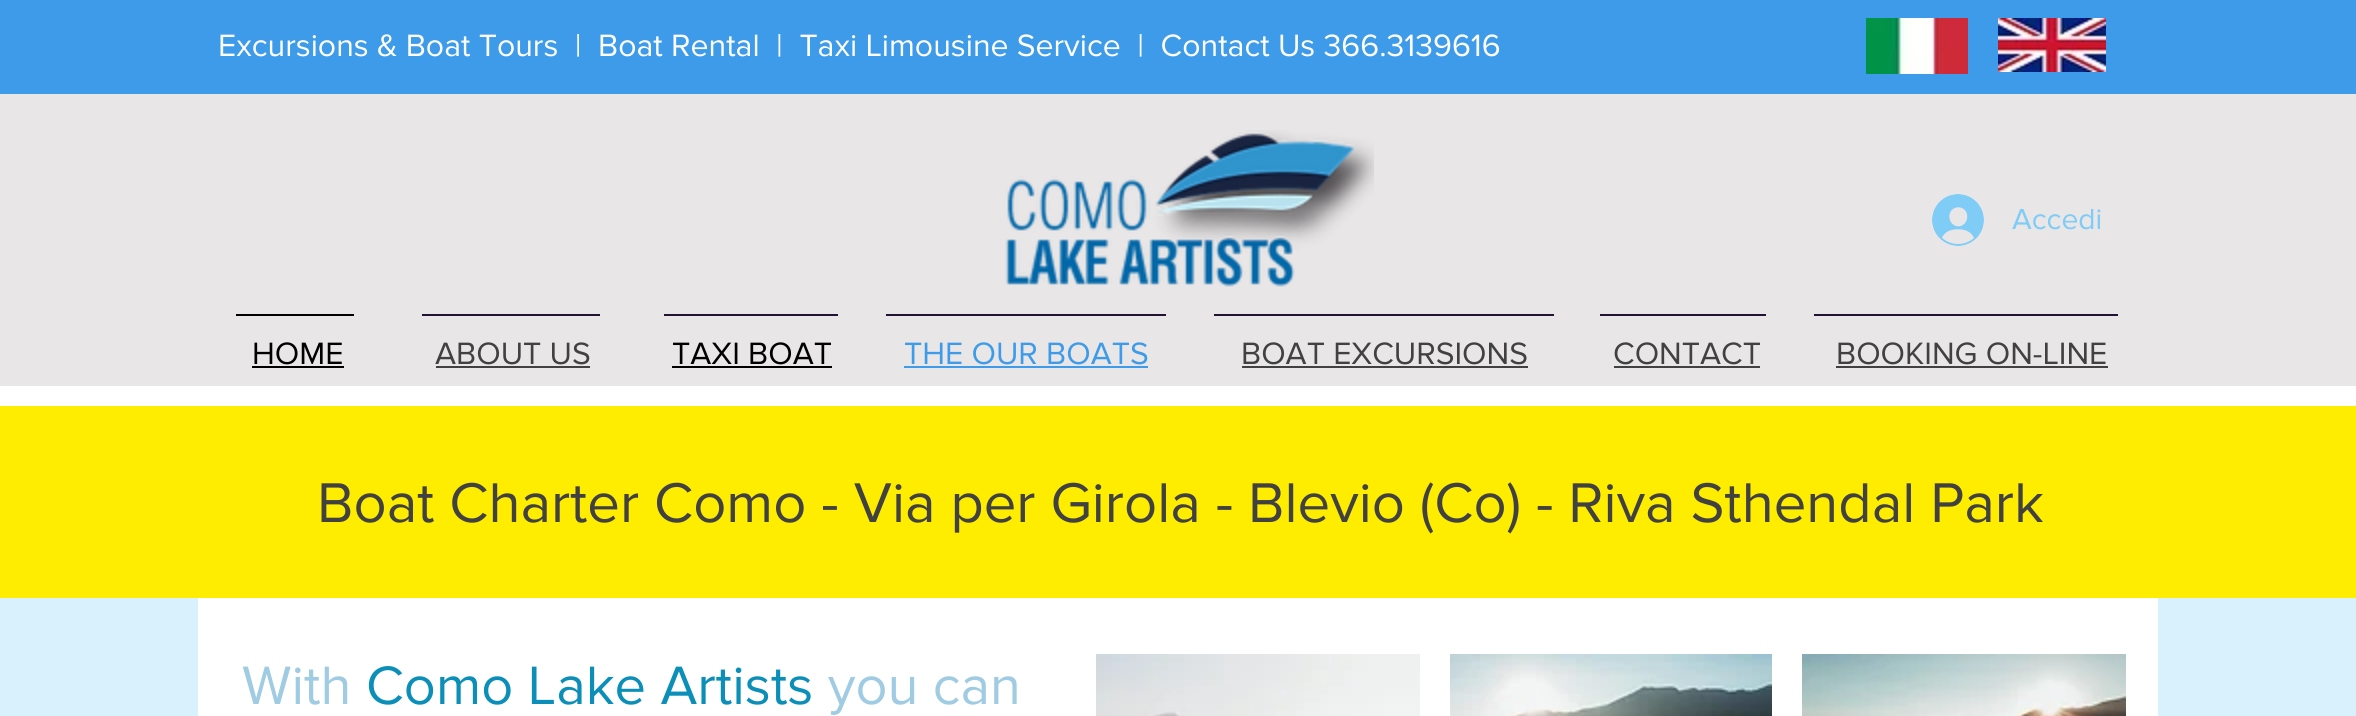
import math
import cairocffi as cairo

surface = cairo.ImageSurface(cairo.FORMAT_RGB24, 2356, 716)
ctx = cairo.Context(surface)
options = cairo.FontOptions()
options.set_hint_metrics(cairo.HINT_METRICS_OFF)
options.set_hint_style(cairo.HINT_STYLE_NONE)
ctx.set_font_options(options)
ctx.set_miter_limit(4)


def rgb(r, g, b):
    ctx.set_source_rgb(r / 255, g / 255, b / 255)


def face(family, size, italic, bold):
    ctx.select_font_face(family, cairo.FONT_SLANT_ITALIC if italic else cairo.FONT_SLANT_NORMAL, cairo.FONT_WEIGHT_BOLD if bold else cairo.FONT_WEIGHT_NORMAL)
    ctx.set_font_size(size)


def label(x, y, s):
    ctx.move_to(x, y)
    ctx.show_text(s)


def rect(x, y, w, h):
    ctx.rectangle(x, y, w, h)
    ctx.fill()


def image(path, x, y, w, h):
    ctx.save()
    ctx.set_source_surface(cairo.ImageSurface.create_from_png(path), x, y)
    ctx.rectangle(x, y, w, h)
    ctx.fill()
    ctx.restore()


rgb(217, 240, 253)
ctx.paint()
rgb(61, 155, 233)
rect(0, 0, 2356, 94)
face('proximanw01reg', 32, 0, 0)
rgb(255, 255, 255)
label(218, 56, 'Excursions & Boat Tours  |  Boat Rental  |  Taxi Limousine Service  |  Contact Us 366.3139616')
image('image0.png', 1866, 18, 102, 56)
image('image1.png', 1998, 18, 108, 54)
rgb(232, 230, 230)
rect(0, 94, 2356, 292)
image('image2.png', 1005, 130, 369, 157)
image('image3.png', 1932, 194, 52, 52)
face('proximanw01reg', 30, 0, 0)
rgb(127, 204, 247)
label(2012, 229, 'Accedi')
rgb(0, 0, 0)
rect(236, 314, 118, 2)
rgb(34, 19, 51)
rect(422, 314, 178, 2)
rect(664, 314, 174, 2)
rect(886, 314, 280, 2)
rect(1214, 314, 340, 2)
rect(1600, 314, 166, 2)
rect(1814, 314, 304, 2)
face('proximanw01reg', 32, 0, 0)
rgb(0, 0, 0)
label(252, 364, 'HOME')
rect(252, 366, 92, 2)
rgb(65, 65, 65)
label(435, 364, 'ABOUT US')
rect(436, 366, 154, 2)
rgb(0, 0, 0)
label(672, 364, 'TAXI BOAT')
rect(672, 366, 160, 2)
rgb(61, 155, 233)
label(904, 364, 'THE OUR BOATS')
rect(904, 366, 244, 2)
rgb(65, 65, 65)
label(1241, 364, 'BOAT EXCURSIONS')
rect(1242, 366, 286, 2)
label(1613, 364, 'CONTACT')
rect(1614, 366, 146, 2)
label(1836, 364, 'BOOKING ON-LINE')
rect(1836, 366, 272, 2)
rgb(255, 237, 0)
rect(0, 406, 2356, 192)
face('proximanw01reg', 58, 0, 0)
rgb(65, 65, 65)
label(317, 522, 'Boat Charter Como - Via per Girola - Blevio (Co) - Riva Sthendal Park')
rgb(255, 255, 255)
rect(0, 386, 2356, 20)
rect(198, 598, 1960, 118)
face('proximanw01reg', 56, 0, 0)
rgb(159, 203, 227)
label(242, 704, 'With')
rgb(11, 143, 184)
label(366, 704, 'Como Lake Artists')
rgb(159, 203, 227)
label(828, 704, 'you can')
image('image4.png', 1096, 654, 324, 62)
image('image5.png', 1450, 654, 322, 62)
image('image6.png', 1802, 654, 324, 62)
surface.write_to_png('render.png')
